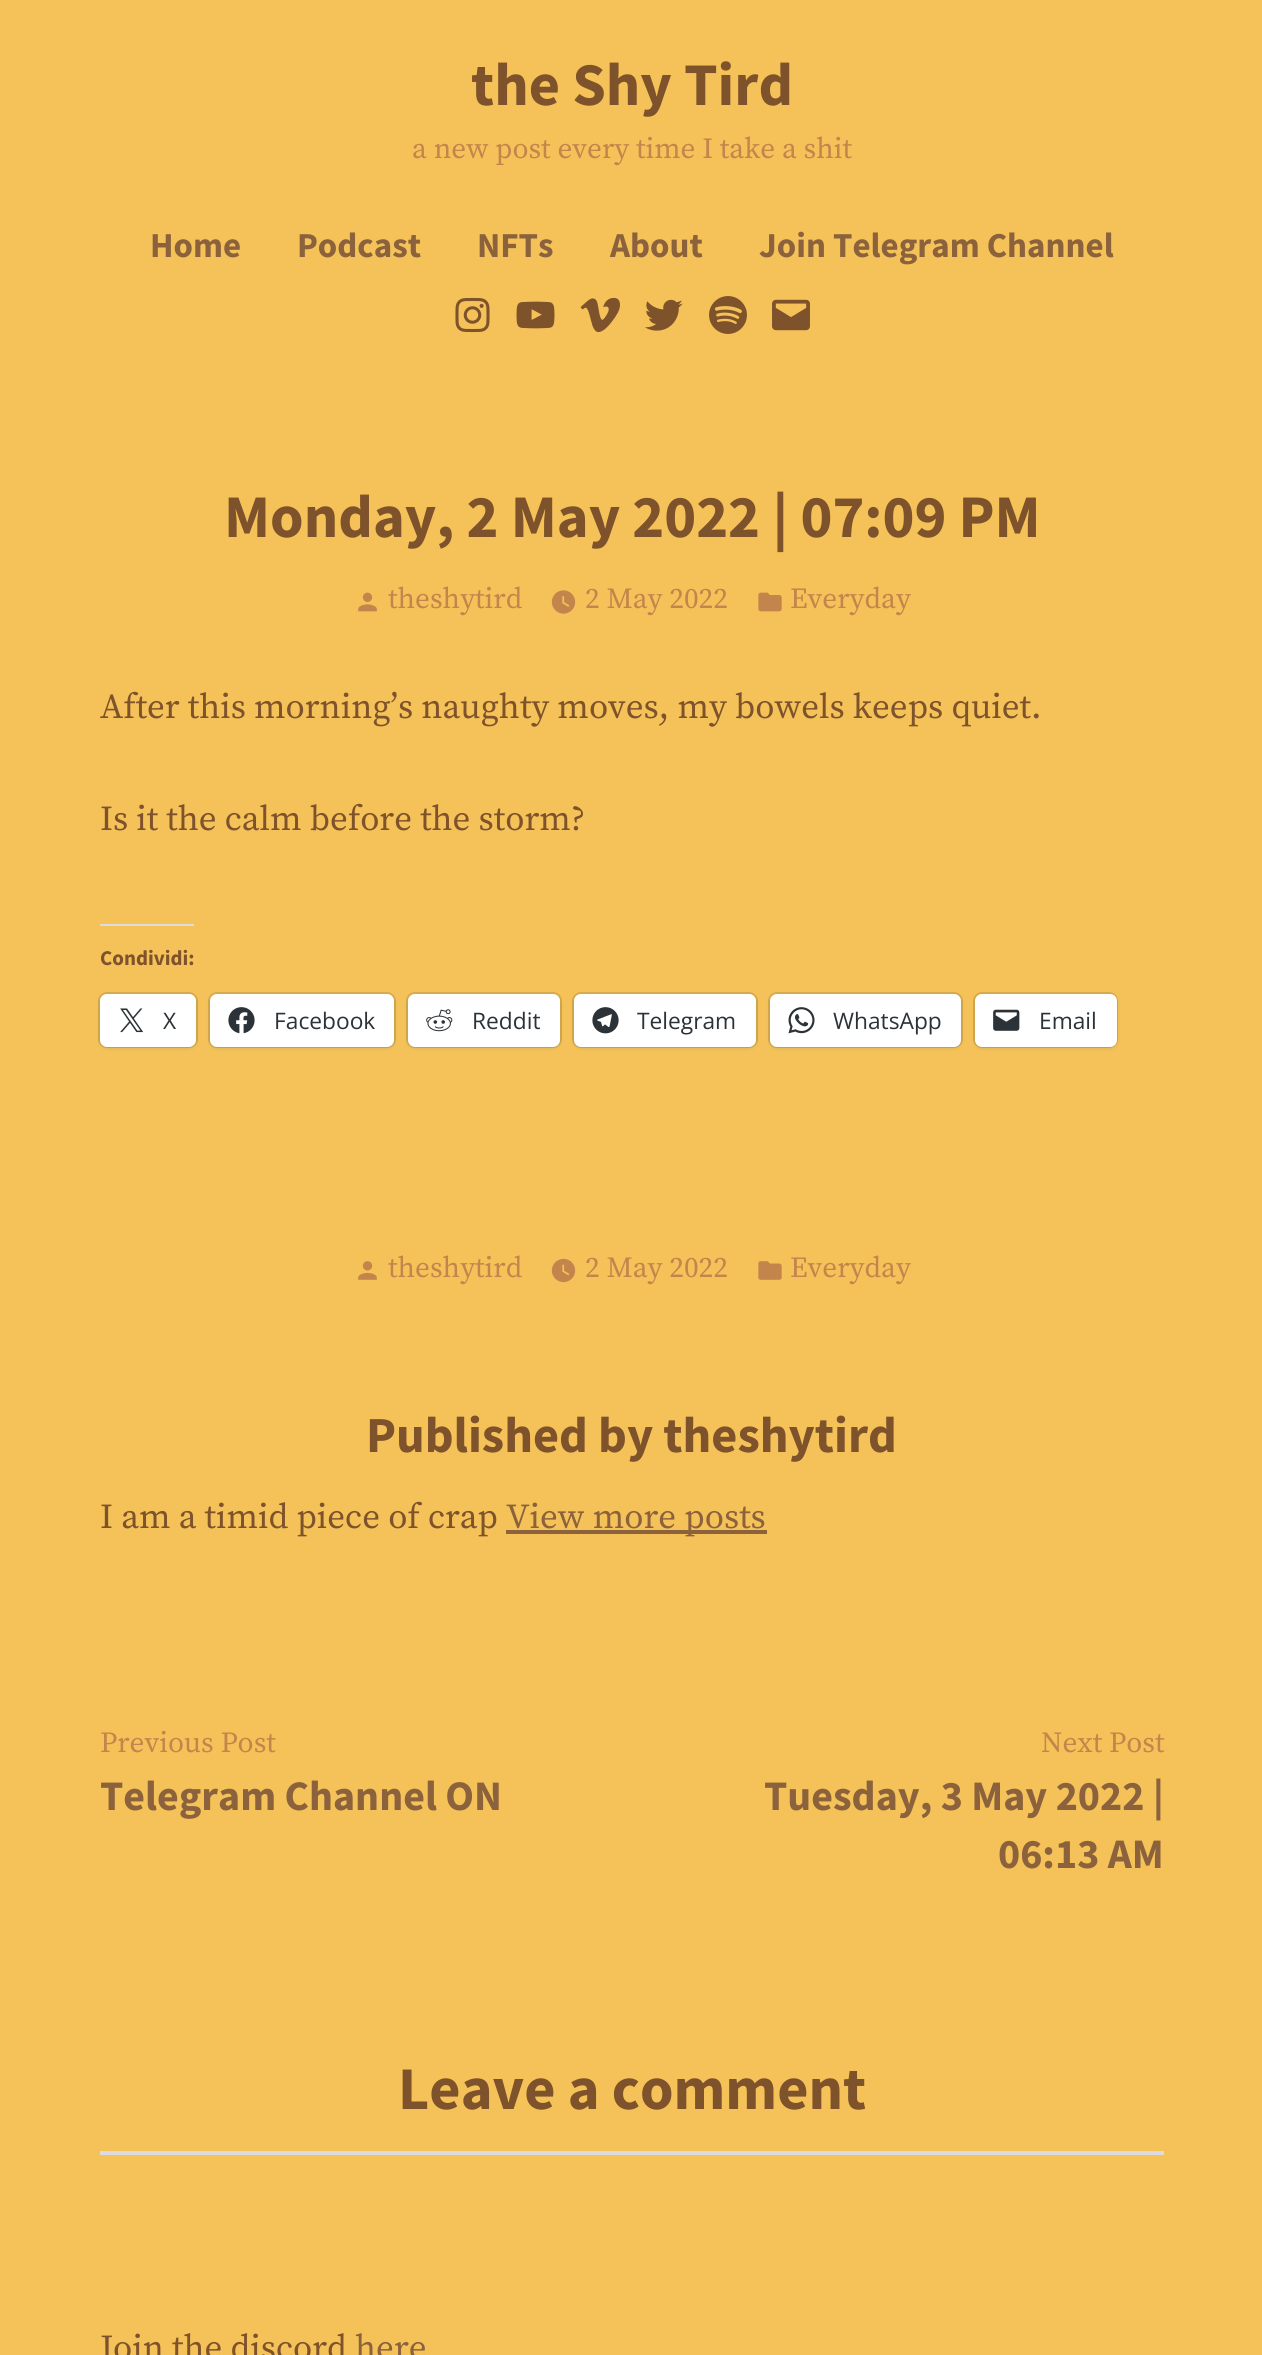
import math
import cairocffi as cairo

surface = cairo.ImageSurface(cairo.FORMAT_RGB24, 1262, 2355)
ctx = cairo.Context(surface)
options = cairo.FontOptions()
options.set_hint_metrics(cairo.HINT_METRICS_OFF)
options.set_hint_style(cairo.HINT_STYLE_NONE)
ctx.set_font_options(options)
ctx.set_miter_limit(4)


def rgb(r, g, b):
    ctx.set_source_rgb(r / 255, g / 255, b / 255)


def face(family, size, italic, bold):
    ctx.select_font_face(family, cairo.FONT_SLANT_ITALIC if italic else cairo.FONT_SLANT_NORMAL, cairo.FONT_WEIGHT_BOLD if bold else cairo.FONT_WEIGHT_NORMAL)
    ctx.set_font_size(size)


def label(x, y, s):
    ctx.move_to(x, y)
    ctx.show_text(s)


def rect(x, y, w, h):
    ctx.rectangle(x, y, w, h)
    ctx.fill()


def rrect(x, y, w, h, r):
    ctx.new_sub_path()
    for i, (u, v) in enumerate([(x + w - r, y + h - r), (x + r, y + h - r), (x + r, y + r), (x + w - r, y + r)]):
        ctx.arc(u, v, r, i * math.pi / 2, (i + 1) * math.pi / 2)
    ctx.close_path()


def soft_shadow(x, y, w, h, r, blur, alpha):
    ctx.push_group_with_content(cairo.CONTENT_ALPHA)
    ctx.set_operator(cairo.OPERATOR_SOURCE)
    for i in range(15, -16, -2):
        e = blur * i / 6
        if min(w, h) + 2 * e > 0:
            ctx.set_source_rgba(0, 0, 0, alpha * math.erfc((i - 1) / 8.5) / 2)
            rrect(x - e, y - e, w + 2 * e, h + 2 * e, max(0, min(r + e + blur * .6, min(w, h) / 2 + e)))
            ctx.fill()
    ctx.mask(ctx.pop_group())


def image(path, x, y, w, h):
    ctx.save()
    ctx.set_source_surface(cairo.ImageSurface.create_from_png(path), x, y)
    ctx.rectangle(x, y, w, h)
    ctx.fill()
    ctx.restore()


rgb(244, 194, 89)
ctx.paint()
face('Source Sans Pro', 60.5, 0, 1)
rgb(126, 82, 42)
label(471, 105, 'the Shy Tird')
face('Source Serif Pro', 29.2, 0, 0)
rgb(195, 133, 75)
label(412, 158, 'a new post every time I take a shit')
face('Source Sans Pro', 35, 0, 1)
rgb(139, 98, 60)
label(150, 257, 'Home')
label(297, 257, 'Podcast')
label(477, 257, 'NFTs')
label(610, 257, 'About')
label(759, 257, 'Join Telegram Channel')
image('image0.png', 455, 297, 35, 36)
image('image1.png', 516, 301, 39, 28)
image('image2.png', 580, 298, 40, 35)
image('image3.png', 645, 299, 38, 32)
image('image4.png', 709, 296, 38, 38)
image('image5.png', 772, 299, 38, 32)
face('Source Sans Pro', 60.5, 0, 1)
rgb(126, 82, 42)
label(224, 537, 'Monday, 2 May 2022 | 07:09 PM')
image('image6.png', 358, 592, 19, 20)
face('Source Serif Pro', 29.2, 0, 0)
rgb(195, 133, 75)
label(388, 608, 'theshytird')
image('image7.png', 551, 590, 25, 24)
label(585, 608, '2 May 2022')
image('image8.png', 758, 592, 24, 20)
label(790, 608, 'Everyday')
face('Source Serif Pro', 35, 0, 0)
rgb(126, 82, 42)
label(100, 718, 'After this morning’s naughty moves, my bowels keeps quiet.')
label(100, 830, 'Is it the calm before the storm?')
rgb(220, 220, 222)
rect(100, 924, 94, 2)
face('Source Sans Pro', 21, 0, 1)
rgb(126, 82, 42)
label(100, 965, 'Condividi:')
rrect(99, 993, 98, 54, 8)
rgb(215, 171, 78)
ctx.stroke()
rgb(0, 0, 0)
soft_shadow(100, 996, 96, 52, 7, 2, 0.12)
rgb(255, 255, 255)
rrect(100, 994, 96, 53, 7)
ctx.fill()
image('image9.png', 120, 1008, 23, 25)
face('Open Sans', 22.75, 0, 0)
rgb(44, 51, 56)
label(163, 1029, 'X')
rrect(209, 993, 186, 54, 8)
rgb(215, 171, 78)
ctx.stroke()
rgb(0, 0, 0)
soft_shadow(210, 996, 184, 52, 7, 2, 0.12)
rgb(255, 255, 255)
rrect(210, 994, 184, 53, 7)
ctx.fill()
image('image10.png', 228, 1007, 27, 27)
rgb(44, 51, 56)
label(274, 1029, 'Facebook')
rrect(407, 993, 154, 54, 8)
rgb(215, 171, 78)
ctx.stroke()
rgb(0, 0, 0)
soft_shadow(408, 996, 152, 52, 7, 2, 0.12)
rgb(255, 255, 255)
rrect(408, 994, 152, 53, 7)
ctx.fill()
image('image11.png', 426, 1009, 27, 23)
rgb(44, 51, 56)
label(472, 1029, 'Reddit')
rrect(573, 993, 184, 54, 8)
rgb(215, 171, 78)
ctx.stroke()
rgb(0, 0, 0)
soft_shadow(574, 996, 182, 52, 7, 2, 0.12)
rgb(255, 255, 255)
rrect(574, 994, 182, 53, 7)
ctx.fill()
image('image12.png', 592, 1007, 27, 27)
rgb(44, 51, 56)
label(637, 1029, 'Telegram')
rrect(769, 993, 193, 54, 8)
rgb(215, 171, 78)
ctx.stroke()
rgb(0, 0, 0)
soft_shadow(770, 996, 191, 52, 7, 2, 0.12)
rgb(255, 255, 255)
rrect(770, 994, 191, 53, 7)
ctx.fill()
image('image13.png', 788, 1007, 27, 27)
rgb(44, 51, 56)
label(833, 1029, 'WhatsApp')
rrect(974, 993, 143, 54, 8)
rgb(215, 171, 78)
ctx.stroke()
rgb(0, 0, 0)
soft_shadow(975, 996, 142, 52, 7, 2, 0.12)
rgb(255, 255, 255)
rrect(975, 994, 142, 53, 7)
ctx.fill()
image('image14.png', 993, 1009, 27, 22)
rgb(44, 51, 56)
label(1039, 1029, 'Email')
image('image15.png', 358, 1261, 19, 19)
face('Source Serif Pro', 29.2, 0, 0)
rgb(195, 133, 75)
label(388, 1277, 'theshytird')
image('image16.png', 551, 1258, 25, 25)
label(585, 1277, '2 May 2022')
image('image17.png', 758, 1261, 24, 19)
label(790, 1277, 'Everyday')
face('Source Sans Pro', 50.4, 0, 1)
rgb(126, 82, 42)
label(366, 1452, 'Published by theshytird')
face('Source Serif Pro', 35, 0, 0)
label(100, 1528, 'I am a timid piece of crap')
rgb(139, 98, 60)
rect(506, 1530, 261, 4)
label(506, 1528, 'View more posts')
face('Source Serif Pro', 29.2, 0, 0)
rgb(195, 133, 75)
label(100, 1752, 'Previous Post')
face('Source Sans Pro', 42, 0, 1)
rgb(139, 98, 60)
label(100, 1810, 'Telegram Channel ON')
face('Source Serif Pro', 29.2, 0, 0)
rgb(195, 133, 75)
label(1041, 1752, 'Next Post')
face('Source Sans Pro', 42, 0, 1)
rgb(139, 98, 60)
label(764, 1810, 'Tuesday, 3 May 2022 |')
label(998, 1868, '06:13 AM')
face('Source Sans Pro', 60.5, 0, 1)
rgb(126, 82, 42)
label(398, 2109, 'Leave a comment')
rgb(220, 220, 222)
rect(100, 2151, 1064, 4)
face('Source Serif Pro', 35, 0, 0)
rgb(126, 82, 42)
label(100, 2359, 'Join the discord')
rgb(139, 98, 60)
label(355, 2359, 'here')
surface.write_to_png('render.png')
